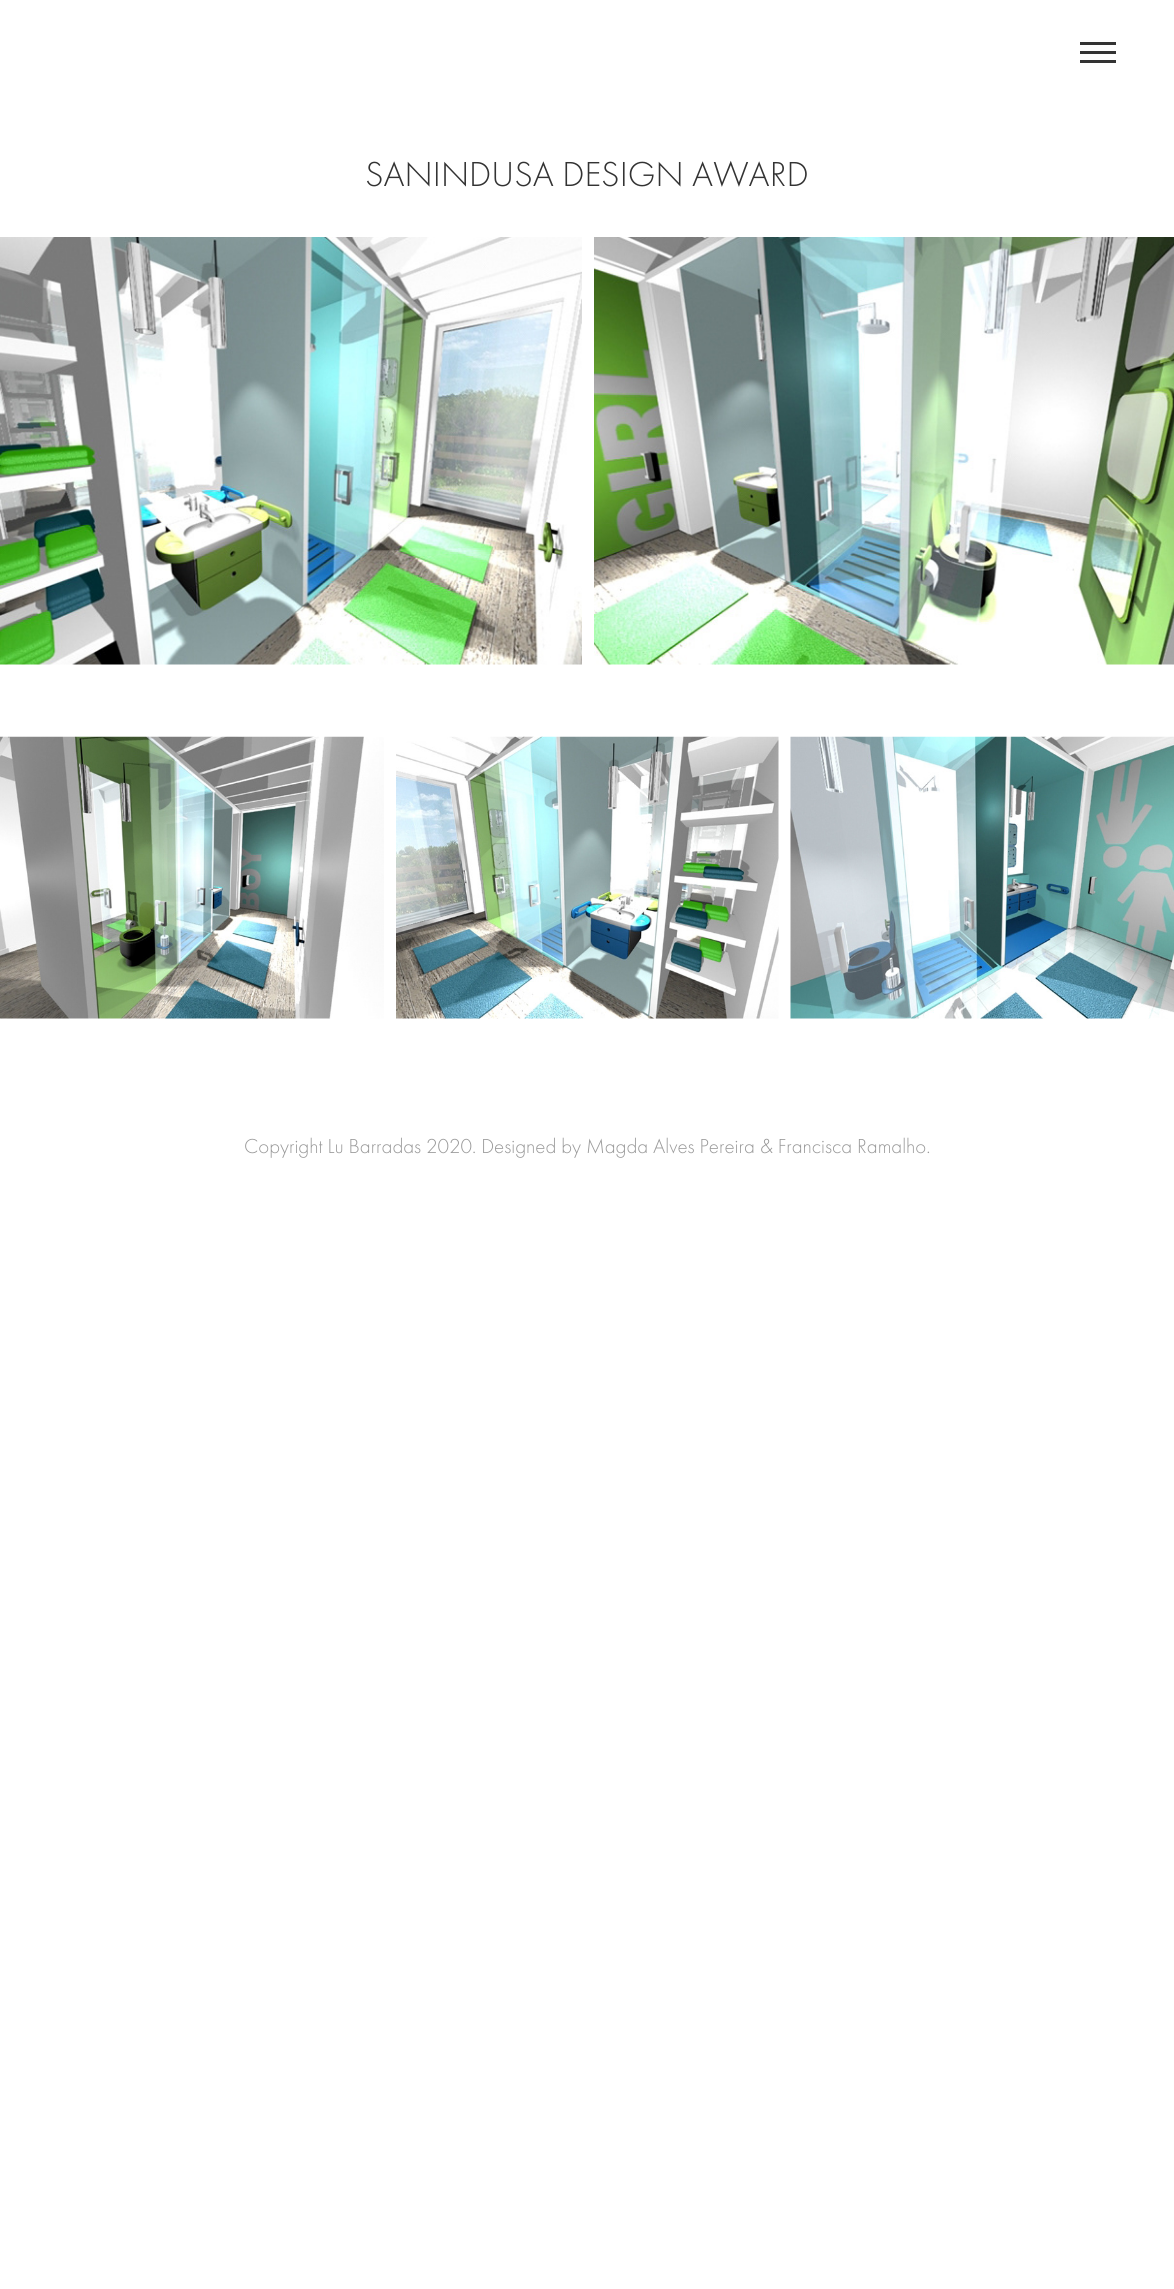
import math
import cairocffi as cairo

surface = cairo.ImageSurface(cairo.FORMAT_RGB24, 1174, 2289)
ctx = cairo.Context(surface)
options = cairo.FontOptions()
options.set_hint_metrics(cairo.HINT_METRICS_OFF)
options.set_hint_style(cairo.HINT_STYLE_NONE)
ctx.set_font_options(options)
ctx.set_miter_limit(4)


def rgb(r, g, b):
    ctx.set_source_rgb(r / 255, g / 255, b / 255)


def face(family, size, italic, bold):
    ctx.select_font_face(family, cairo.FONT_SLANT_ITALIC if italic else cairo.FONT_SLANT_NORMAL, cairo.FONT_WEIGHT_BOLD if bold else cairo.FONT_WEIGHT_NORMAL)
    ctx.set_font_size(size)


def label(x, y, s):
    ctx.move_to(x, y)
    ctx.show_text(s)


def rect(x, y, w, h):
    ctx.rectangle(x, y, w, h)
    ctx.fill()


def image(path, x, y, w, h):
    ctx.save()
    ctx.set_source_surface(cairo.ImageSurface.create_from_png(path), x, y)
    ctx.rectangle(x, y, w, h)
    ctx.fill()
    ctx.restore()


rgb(255, 255, 255)
ctx.paint()
rgb(51, 51, 51)
rect(1080, 42, 36, 3)
rect(1080, 51, 36, 3)
rect(1080, 60, 36, 3)
face('Futura PT Light', 36, 0, 0)
label(365, 186, 'SANINDUSA DESIGN AWARD')
image('image0.png', 0, 237, 582, 428)
image('image1.png', 594, 237, 580, 428)
image('image2.png', 0, 736, 384, 283)
image('image3.png', 396, 736, 383, 283)
image('image4.png', 790, 736, 384, 283)
face('Futura PT Light', 21, 0, 0)
rgb(153, 153, 153)
label(244, 1153, 'Copyright Lu Barradas 2020. Designed by Magda Alves Pereira & Francisca Ramalho.')
surface.write_to_png('render.png')
